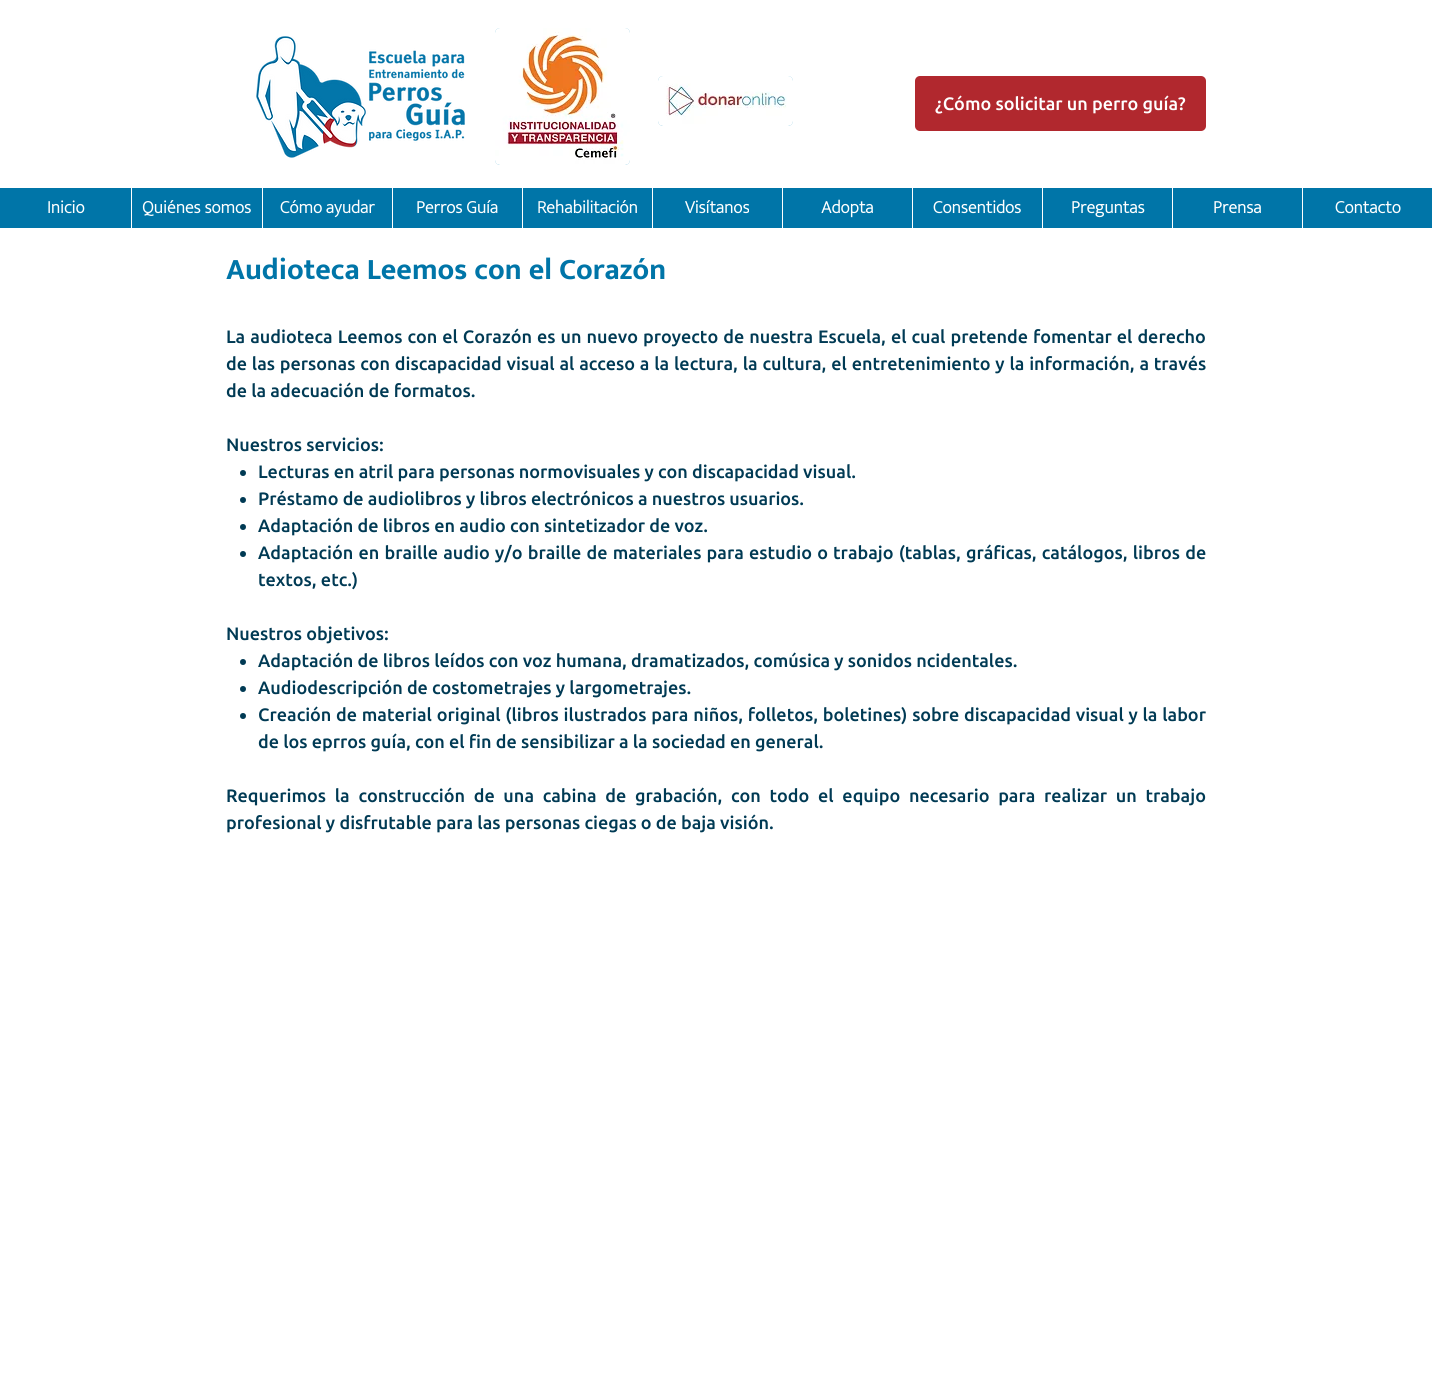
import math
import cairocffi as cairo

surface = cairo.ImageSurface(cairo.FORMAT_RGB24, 1432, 1384)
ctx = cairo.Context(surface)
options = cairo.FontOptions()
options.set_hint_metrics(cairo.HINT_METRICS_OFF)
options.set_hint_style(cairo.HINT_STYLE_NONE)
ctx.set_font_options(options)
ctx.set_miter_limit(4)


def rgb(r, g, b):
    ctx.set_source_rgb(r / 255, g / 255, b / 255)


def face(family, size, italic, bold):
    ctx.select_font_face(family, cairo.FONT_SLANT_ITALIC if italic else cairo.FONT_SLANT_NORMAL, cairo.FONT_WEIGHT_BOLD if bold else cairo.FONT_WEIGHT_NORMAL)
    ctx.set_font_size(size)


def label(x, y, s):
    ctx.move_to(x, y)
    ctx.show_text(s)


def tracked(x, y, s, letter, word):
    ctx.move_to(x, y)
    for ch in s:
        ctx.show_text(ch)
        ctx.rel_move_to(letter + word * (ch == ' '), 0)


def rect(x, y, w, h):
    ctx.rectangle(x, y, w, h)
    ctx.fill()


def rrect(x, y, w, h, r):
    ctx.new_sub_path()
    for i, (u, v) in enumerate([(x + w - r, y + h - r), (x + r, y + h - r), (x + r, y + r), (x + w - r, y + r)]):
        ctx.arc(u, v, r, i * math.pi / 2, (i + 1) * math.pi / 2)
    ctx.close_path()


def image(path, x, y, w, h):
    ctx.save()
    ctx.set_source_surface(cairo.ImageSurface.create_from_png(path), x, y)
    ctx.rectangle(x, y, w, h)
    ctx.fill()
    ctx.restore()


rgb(255, 255, 255)
ctx.paint()
image('image0.png', 256, 36, 209, 122)
rgb(175, 216, 233)
rrect(495, 28, 135, 137, 5)
ctx.fill()
image('image1.png', 495, 28, 135, 137)
rrect(658, 76, 135, 50, 5)
ctx.fill()
image('image2.png', 658, 76, 135, 50)
rgb(177, 40, 46)
rrect(915, 76, 291, 55, 5)
ctx.fill()
face('Ubuntu Medium', 18, 0, 0)
rgb(255, 255, 255)
label(935, 110, '¿Cómo solicitar un perro guía?')
rgb(0, 117, 168)
rect(0, 188, 1432, 40)
face('Mukta', 18, 0, 1)
rgb(255, 255, 255)
label(47, 213, 'Inicio')
rect(131, 188, 1, 40)
label(142, 213, 'Quiénes somos')
rect(262, 188, 1, 40)
label(280, 213, 'Cómo ayudar')
rect(392, 188, 1, 40)
label(416, 213, 'Perros Guía')
rect(522, 188, 1, 40)
label(537, 213, 'Rehabilitación')
rect(652, 188, 1, 40)
label(685, 213, 'Visítanos')
rect(782, 188, 1, 40)
label(821, 213, 'Adopta')
rect(912, 188, 1, 40)
label(933, 213, 'Consentidos')
rect(1042, 188, 1, 40)
label(1071, 213, 'Preguntas')
rect(1172, 188, 1, 40)
label(1213, 213, 'Prensa')
rect(1302, 188, 1, 40)
label(1335, 213, 'Contacto')
face('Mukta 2', 30, 0, 1)
rgb(0, 117, 168)
label(226, 279, 'Audioteca Leemos con el Corazón')
face('Ubuntu Medium', 18, 0, 0)
rgb(0, 58, 84)
tracked(226, 343, 'La audioteca Leemos con el Corazón es un nuevo proyecto de nuestra Escuela, el cual pretende fomentar el derecho', 0, 0.8)
tracked(226, 370, 'de las personas con discapacidad visual al acceso a la lectura, la cultura, el entretenimiento y la información, a través', 0, 0.6)
label(226, 397, 'de la adecuación de formatos.')
label(226, 451, 'Nuestros servicios:')
ctx.new_path()
ctx.arc(243, 473, 3, 0, 2 * math.pi)
ctx.fill()
label(258, 478, 'Lecturas en atril para personas normovisuales y con discapacidad visual.')
ctx.new_path()
ctx.arc(243, 500, 3, 0, 2 * math.pi)
ctx.fill()
label(258, 505, 'Préstamo de audiolibros y libros electrónicos a nuestros usuarios.')
ctx.new_path()
ctx.arc(243, 527, 3, 0, 2 * math.pi)
ctx.fill()
label(258, 532, 'Adaptación de libros en audio con sintetizador de voz.')
ctx.new_path()
ctx.arc(243, 554, 3, 0, 2 * math.pi)
ctx.fill()
tracked(258, 559, 'Adaptación en braille audio y/o braille de materiales para estudio o trabajo (tablas, gráficas, catálogos, libros de', 0, 1)
label(258, 586, 'textos, etc.)')
label(226, 640, 'Nuestros objetivos:')
ctx.new_path()
ctx.arc(243, 662, 3, 0, 2 * math.pi)
ctx.fill()
label(258, 667, 'Adaptación de libros leídos con voz humana, dramatizados, comúsica y sonidos ncidentales.')
ctx.new_path()
ctx.arc(243, 689, 3, 0, 2 * math.pi)
ctx.fill()
label(258, 694, 'Audiodescripción de costometrajes y largometrajes.')
ctx.new_path()
ctx.arc(243, 716, 3, 0, 2 * math.pi)
ctx.fill()
tracked(258, 721, 'Creación de material original (libros ilustrados para niños, folletos, boletines) sobre discapacidad visual y la labor', 0, 0.5)
label(258, 748, 'de los eprros guía, con el fin de sensibilizar a la sociedad en general.')
tracked(226, 802, 'Requerimos la construcción de una cabina de grabación, con todo el equipo necesario para realizar un trabajo', 0, 4.5)
label(226, 829, 'profesional y disfrutable para las personas ciegas o de baja visión.')
surface.write_to_png('render.png')
